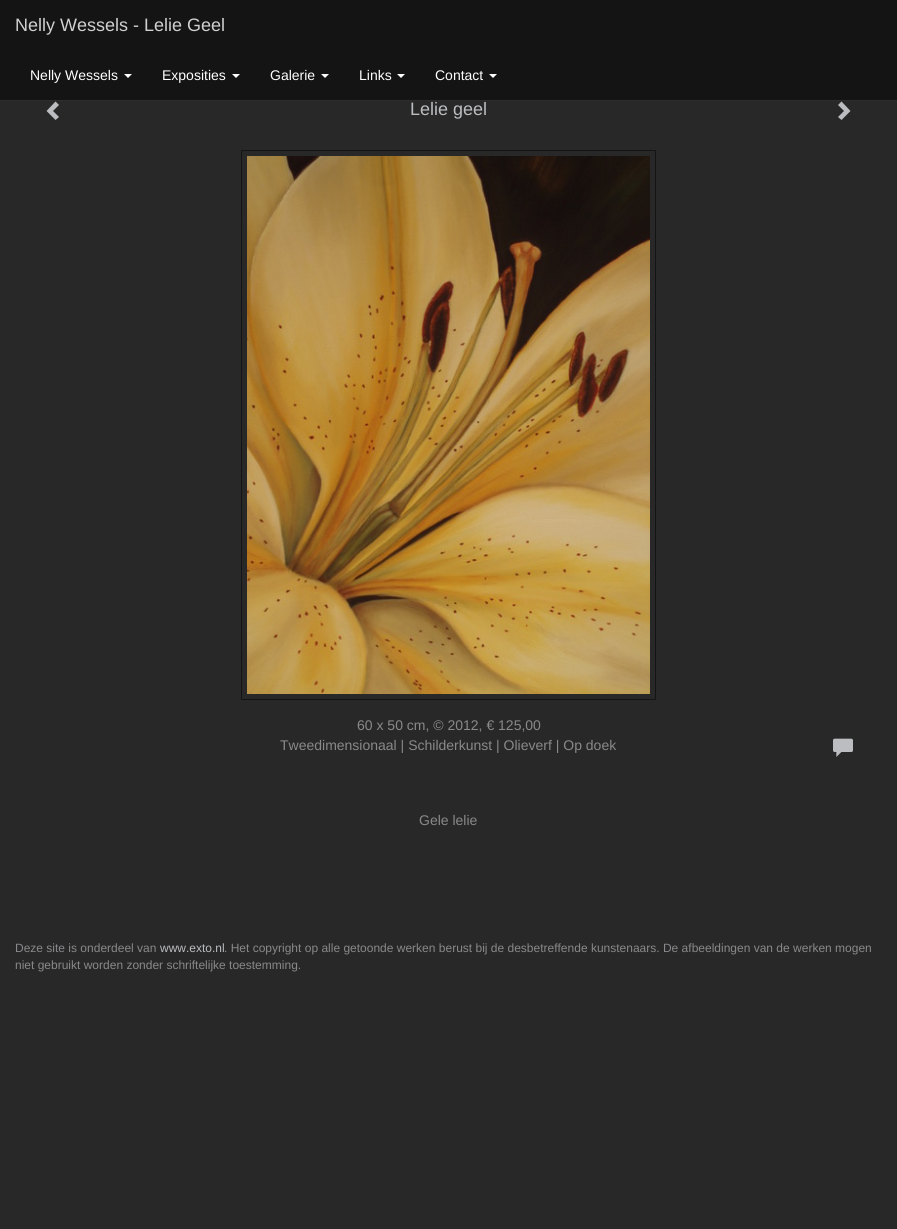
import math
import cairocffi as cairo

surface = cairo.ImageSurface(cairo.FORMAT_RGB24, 897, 1229)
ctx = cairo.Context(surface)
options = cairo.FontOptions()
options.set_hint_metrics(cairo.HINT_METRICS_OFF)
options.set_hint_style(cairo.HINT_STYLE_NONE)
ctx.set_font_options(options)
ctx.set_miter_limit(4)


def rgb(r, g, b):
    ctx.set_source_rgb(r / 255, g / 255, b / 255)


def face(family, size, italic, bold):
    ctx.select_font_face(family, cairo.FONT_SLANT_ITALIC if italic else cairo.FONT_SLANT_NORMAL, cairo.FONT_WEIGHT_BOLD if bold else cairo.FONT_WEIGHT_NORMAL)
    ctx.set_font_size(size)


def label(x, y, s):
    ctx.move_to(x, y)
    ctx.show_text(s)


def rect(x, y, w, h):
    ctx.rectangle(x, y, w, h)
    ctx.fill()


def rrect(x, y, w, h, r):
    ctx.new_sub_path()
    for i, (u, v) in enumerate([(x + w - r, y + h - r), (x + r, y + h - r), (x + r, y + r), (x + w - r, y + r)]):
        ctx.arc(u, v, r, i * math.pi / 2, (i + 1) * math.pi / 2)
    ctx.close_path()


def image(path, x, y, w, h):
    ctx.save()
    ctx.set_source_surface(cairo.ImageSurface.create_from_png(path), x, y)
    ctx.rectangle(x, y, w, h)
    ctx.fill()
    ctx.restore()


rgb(40, 40, 40)
ctx.paint()
rgb(20, 20, 20)
rect(0, 0, 897, 100)
rgb(45, 45, 45)
rect(0, 100, 897, 1)
face('Liberation Sans', 18, 0, 0)
rgb(208, 208, 208)
label(15, 31, 'Nelly Wessels - Lelie Geel')
face('Liberation Sans', 14, 0, 0)
rgb(255, 255, 255)
label(30, 80, 'Nelly Wessels')
ctx.new_path()
ctx.move_to(124, 74)
ctx.line_to(132, 74)
ctx.line_to(128, 78)
ctx.close_path()
ctx.fill()
label(162, 80, 'Exposities')
ctx.new_path()
ctx.move_to(232, 74)
ctx.line_to(240, 74)
ctx.line_to(236, 78)
ctx.close_path()
ctx.fill()
label(270, 80, 'Galerie')
ctx.new_path()
ctx.move_to(321, 74)
ctx.line_to(329, 74)
ctx.line_to(325, 78)
ctx.close_path()
ctx.fill()
label(359, 80, 'Links')
ctx.new_path()
ctx.move_to(397, 74)
ctx.line_to(405, 74)
ctx.line_to(401, 78)
ctx.close_path()
ctx.fill()
label(435, 80, 'Contact')
ctx.new_path()
ctx.move_to(489, 74)
ctx.line_to(497, 74)
ctx.line_to(493, 78)
ctx.close_path()
ctx.fill()
rgb(188, 189, 192)
ctx.new_path()
ctx.move_to(59, 105)
ctx.line_to(53, 111)
ctx.line_to(59, 117)
ctx.line_to(55.5, 120)
ctx.line_to(46.5, 111)
ctx.line_to(55.5, 101.5)
ctx.close_path()
ctx.fill()
face('Liberation Sans', 18, 0, 0)
label(410, 115, 'Lelie geel')
ctx.new_path()
ctx.move_to(850.5, 111)
ctx.line_to(841.5, 120)
ctx.line_to(838, 117)
ctx.line_to(844, 111)
ctx.line_to(838, 105)
ctx.line_to(841.5, 101.5)
ctx.close_path()
ctx.fill()
rrect(241.5, 150.5, 414, 549, 0.5)
rgb(20, 20, 20)
ctx.set_line_width(1)
ctx.stroke()
image('image0.png', 247, 156, 403, 538)
face('Liberation Sans', 14, 0, 0)
rgb(137, 137, 139)
label(357, 730, '60 x 50 cm, © 2012, € 125,00')
label(280, 750, 'Tweedimensionaal | Schilderkunst | Olieverf | Op doek')
image('image1.png', 833, 738, 20, 19)
label(419, 825, 'Gele lelie')
face('Liberation Sans', 12, 0, 0)
label(15, 952, 'Deze site is onderdeel van')
rgb(188, 189, 192)
label(160, 952, 'www.exto.nl')
rgb(137, 137, 139)
label(224, 952, '. Het copyright op alle getoonde werken berust bij de desbetreffende kunstenaars. De afbeeldingen van de werken mogen')
label(15, 969, 'niet gebruikt worden zonder schriftelijke toestemming.')
surface.write_to_png('render.png')
